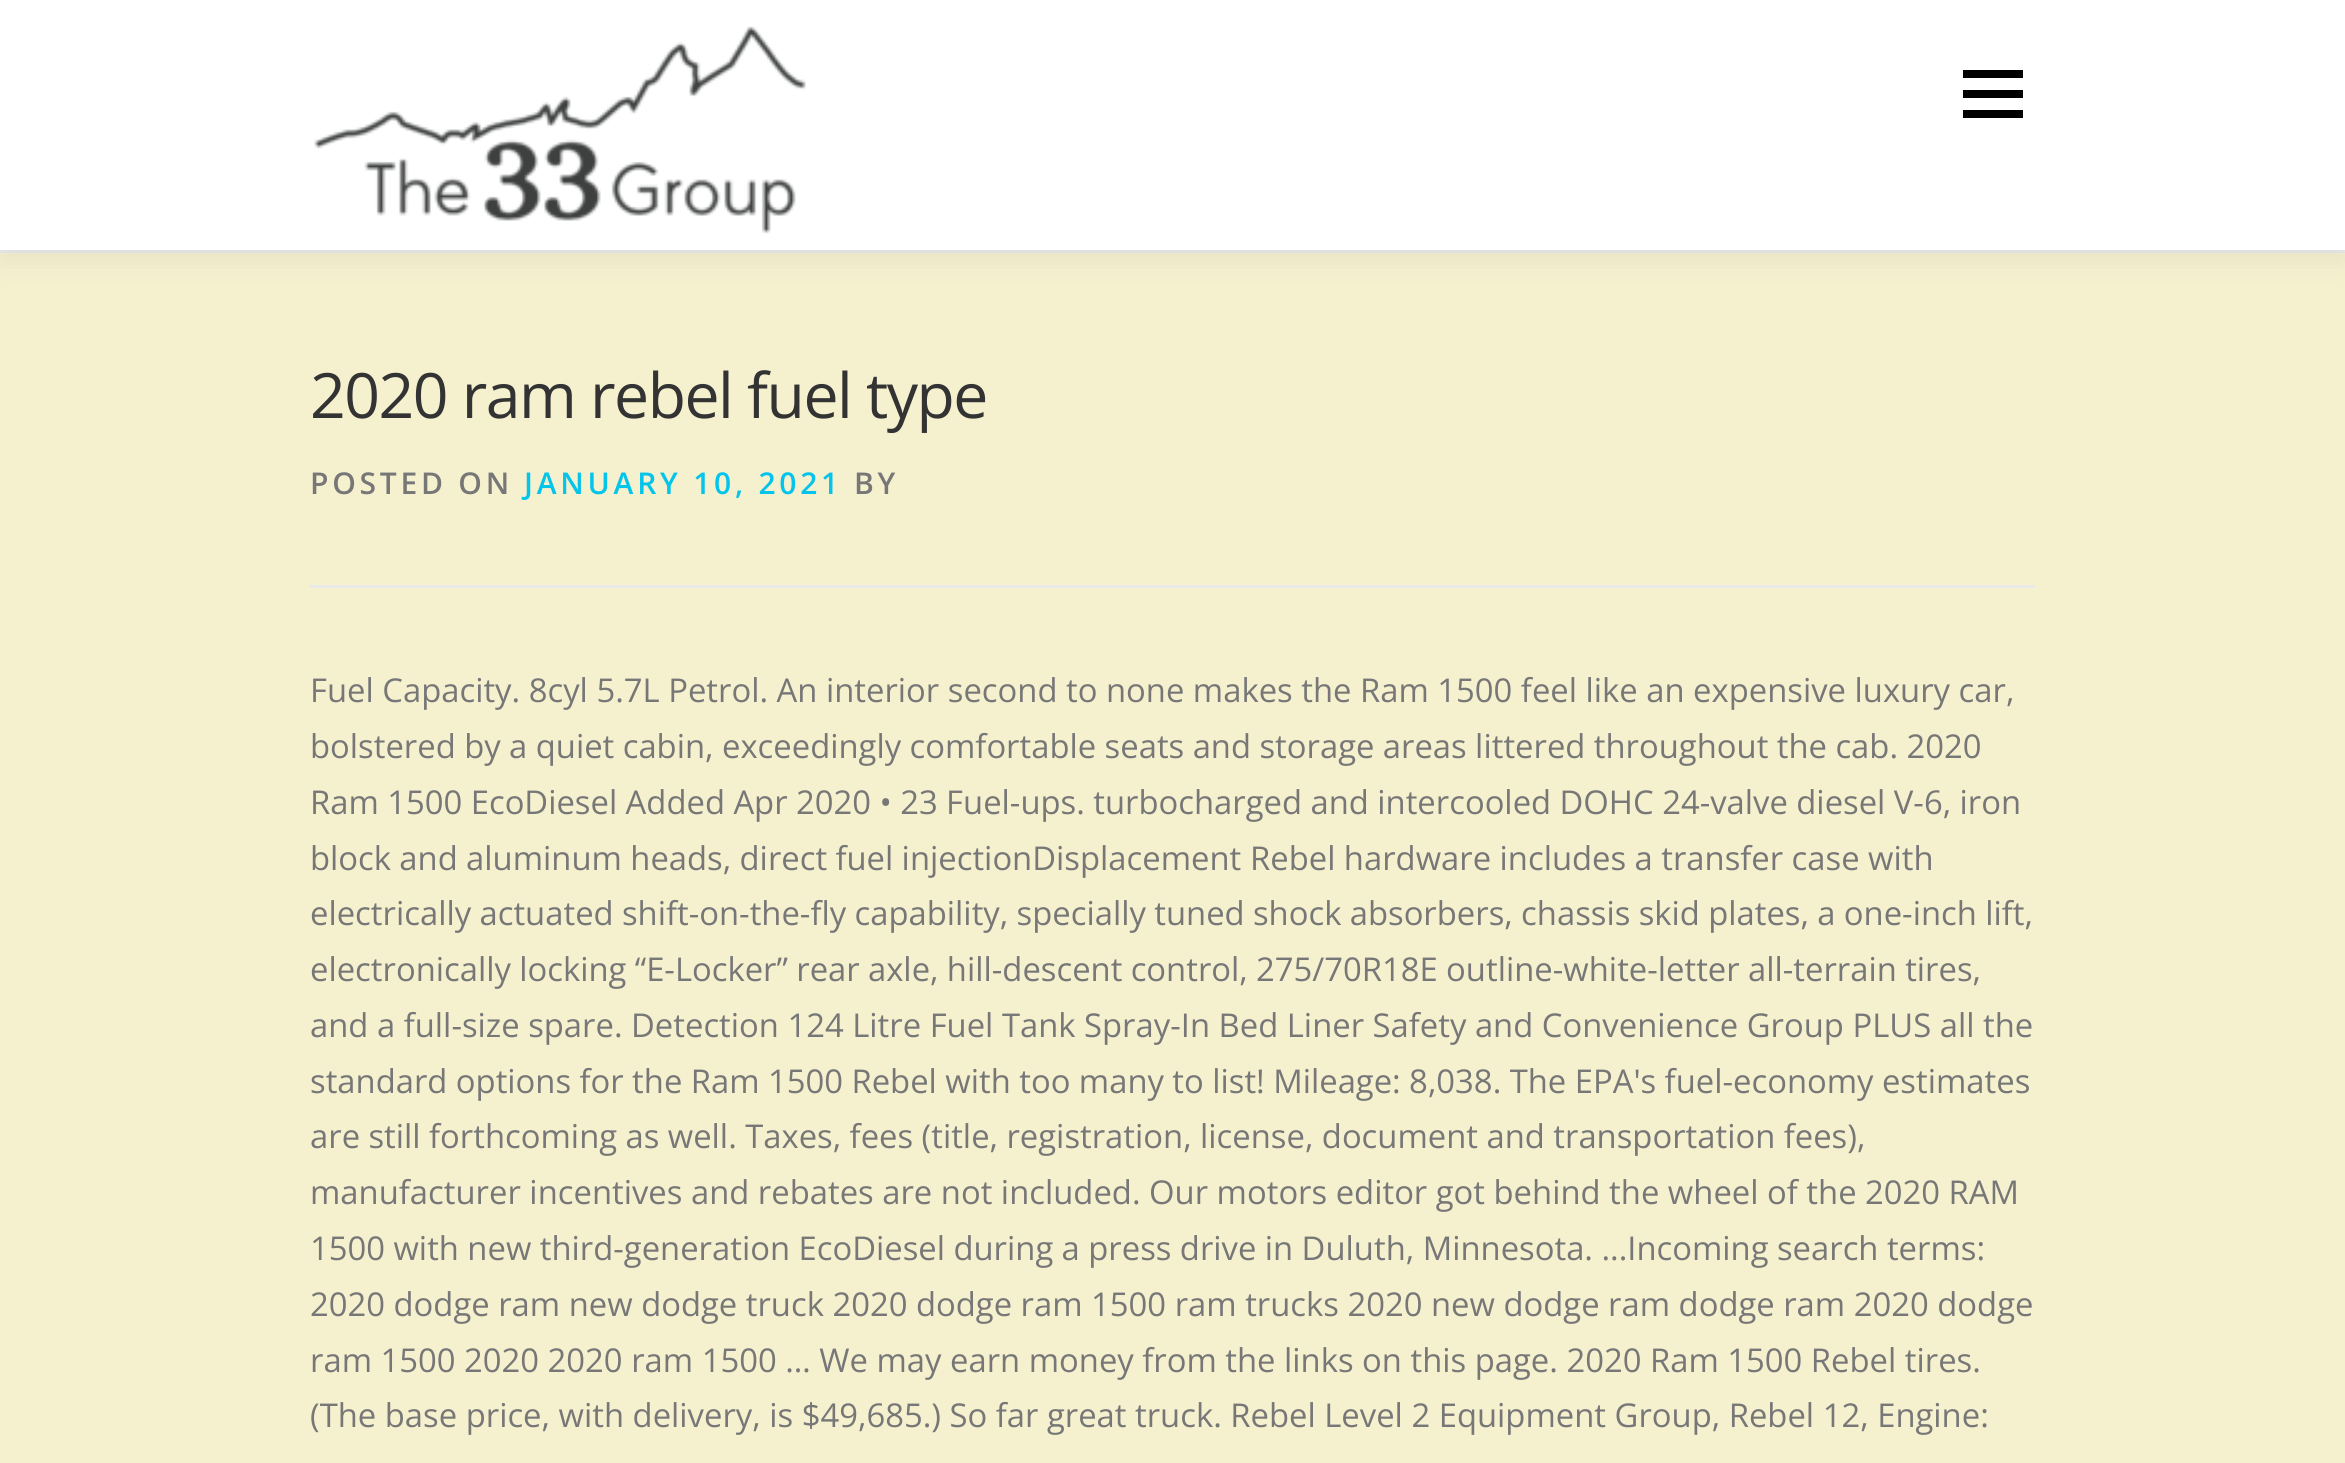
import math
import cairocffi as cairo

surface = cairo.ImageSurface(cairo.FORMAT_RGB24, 2345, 1463)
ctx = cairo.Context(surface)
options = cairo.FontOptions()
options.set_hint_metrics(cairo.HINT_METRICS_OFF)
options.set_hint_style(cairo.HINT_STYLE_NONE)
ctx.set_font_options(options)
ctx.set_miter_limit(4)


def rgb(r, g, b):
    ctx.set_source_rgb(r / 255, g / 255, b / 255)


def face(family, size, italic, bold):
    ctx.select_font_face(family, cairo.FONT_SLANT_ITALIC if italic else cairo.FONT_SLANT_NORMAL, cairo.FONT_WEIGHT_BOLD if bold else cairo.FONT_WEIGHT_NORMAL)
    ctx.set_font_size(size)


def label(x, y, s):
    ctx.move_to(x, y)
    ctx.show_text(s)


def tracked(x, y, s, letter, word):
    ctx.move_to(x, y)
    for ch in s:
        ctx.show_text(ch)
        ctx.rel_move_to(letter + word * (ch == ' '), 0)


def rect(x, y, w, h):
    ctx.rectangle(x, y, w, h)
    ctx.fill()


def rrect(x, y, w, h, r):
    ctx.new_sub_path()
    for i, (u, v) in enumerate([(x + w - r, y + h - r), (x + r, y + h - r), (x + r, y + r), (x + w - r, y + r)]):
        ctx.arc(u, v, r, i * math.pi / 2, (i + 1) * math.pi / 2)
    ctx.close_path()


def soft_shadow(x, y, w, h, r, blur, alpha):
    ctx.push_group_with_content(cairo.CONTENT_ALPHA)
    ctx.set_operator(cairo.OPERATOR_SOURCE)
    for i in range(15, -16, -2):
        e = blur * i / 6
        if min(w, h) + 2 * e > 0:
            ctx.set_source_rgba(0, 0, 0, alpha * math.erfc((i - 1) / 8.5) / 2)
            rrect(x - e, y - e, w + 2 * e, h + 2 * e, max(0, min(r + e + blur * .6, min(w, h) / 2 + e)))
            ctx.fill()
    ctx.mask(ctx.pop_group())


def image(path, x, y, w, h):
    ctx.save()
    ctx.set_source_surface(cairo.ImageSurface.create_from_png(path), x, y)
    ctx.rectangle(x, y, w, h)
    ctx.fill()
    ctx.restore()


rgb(245, 240, 206)
ctx.paint()
rgb(233, 233, 233)
rect(0, 250, 2345, 3)
rgb(50, 50, 50)
soft_shadow(0, 13, 2345, 250, 0, 12.5, 0.06)
rgb(255, 255, 255)
rect(0, 0, 2345, 250)
image('image0.png', 314, 26, 492, 208)
rgb(0, 0, 0)
rect(1963, 90, 60, 8)
rect(1963, 70, 60, 8)
rect(1963, 110, 60, 8)
face('Open Sans', 62.5, 0, 0)
rgb(51, 51, 51)
tracked(310, 418, '2020 ram rebel fuel type', -1.5, 0)
rgb(233, 233, 233)
rect(310, 585, 1725, 3)
face('Open Sans SemiBold', 30, 0, 0)
rgb(119, 119, 119)
tracked(310, 494, 'POSTED ON', 3.75, 0)
rgb(3, 196, 235)
tracked(524, 494, 'JANUARY 10, 2021', 3.75, 0)
rgb(119, 119, 119)
tracked(854, 494, 'BY', 3.75, 0)
face('Open Sans', 32.8, 0, 0)
label(310, 702, 'Fuel Capacity. 8cyl 5.7L Petrol. An interior second to none makes the Ram 1500 feel like an expensive luxury car,')
tracked(310, 758, 'bolstered by a quiet cabin, exceedingly comfortable seats and storage areas littered throughout the cab. 2020', 0, -0.1)
tracked(310, 814, 'Ram 1500 EcoDiesel Added Apr 2020 • 23 Fuel-ups. turbocharged and intercooled DOHC 24-valve diesel V-6, iron', 0, -0.1)
tracked(310, 870, 'block and aluminum heads, direct fuel injectionDisplacement', 0, -0.2)
tracked(1250, 870, 'Rebel hardware includes a transfer case with', 0, -0.1)
tracked(310, 925, 'electrically actuated shift-on-the-fly capability, specially tuned shock absorbers, chassis skid plates, a one-inch lift,', 0, -0.2)
tracked(310, 981, 'electronically locking “E-Locker” rear axle, hill-descent control, 275/70R18E outline-white-letter all-terrain tires,', 0, -0.25)
label(310, 1037, 'and a full-size spare. Detection 124 Litre Fuel Tank Spray-In Bed Liner Safety and Convenience Group PLUS all the')
tracked(310, 1093, 'standard options for the Ram 1500 Rebel with too many to list! Mileage: 8,038. The EPA\'s fuel-economy estimates', 0, -0.1)
tracked(310, 1148, 'are still forthcoming as well. Taxes, fees (title, registration, license, document and transportation fees),', 0, -0.1)
label(310, 1204, 'manufacturer incentives and rebates are not included. Our motors editor got behind the wheel of the 2020 RAM')
tracked(310, 1260, '1500 with new third-generation EcoDiesel during a press drive in Duluth, Minnesota. ...Incoming search terms:', 0, -0.1)
label(310, 1316, '2020 dodge ram new dodge truck 2020 dodge ram 1500 ram trucks 2020 new dodge ram dodge ram 2020 dodge')
label(310, 1372, 'ram 1500 2020 2020 ram 1500 … We may earn money from the links on this page. 2020 Ram 1500 Rebel tires.')
label(310, 1427, '(The base price, with delivery, is $49,685.) So far great truck. Rebel Level 2 Equipment Group, Rebel 12, Engine:')
surface.write_to_png('render.png')
